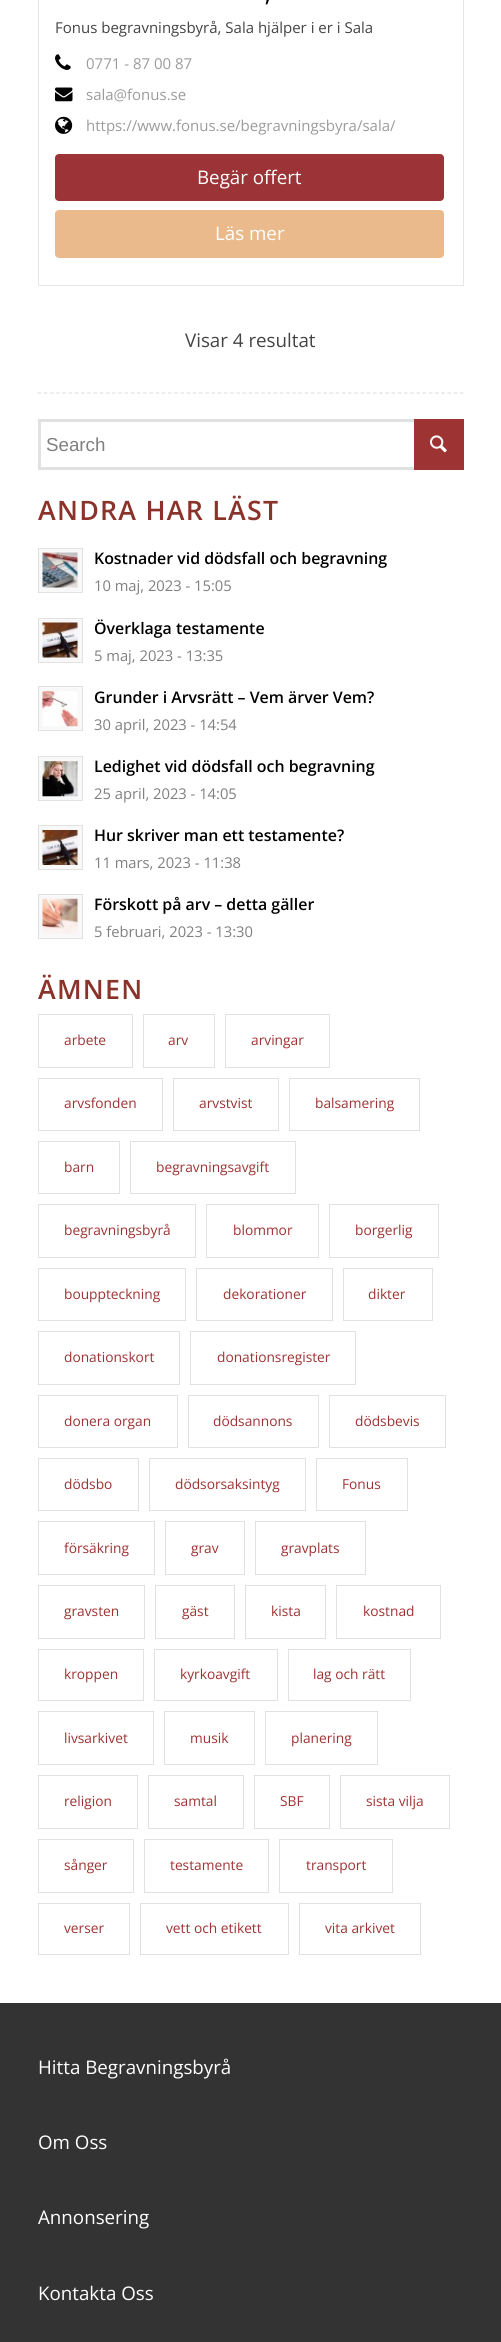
import math
import cairocffi as cairo

surface = cairo.ImageSurface(cairo.FORMAT_RGB24, 501, 2342)
ctx = cairo.Context(surface)
options = cairo.FontOptions()
options.set_hint_metrics(cairo.HINT_METRICS_OFF)
options.set_hint_style(cairo.HINT_STYLE_NONE)
ctx.set_font_options(options)
ctx.set_miter_limit(4)


def rgb(r, g, b):
    ctx.set_source_rgb(r / 255, g / 255, b / 255)


def face(family, size, italic, bold):
    ctx.select_font_face(family, cairo.FONT_SLANT_ITALIC if italic else cairo.FONT_SLANT_NORMAL, cairo.FONT_WEIGHT_BOLD if bold else cairo.FONT_WEIGHT_NORMAL)
    ctx.set_font_size(size)


def label(x, y, s):
    ctx.move_to(x, y)
    ctx.show_text(s)


def tracked(x, y, s, letter, word):
    ctx.move_to(x, y)
    for ch in s:
        ctx.show_text(ch)
        ctx.rel_move_to(letter + word * (ch == ' '), 0)


def rect(x, y, w, h):
    ctx.rectangle(x, y, w, h)
    ctx.fill()


def rrect(x, y, w, h, r):
    ctx.new_sub_path()
    for i, (u, v) in enumerate([(x + w - r, y + h - r), (x + r, y + h - r), (x + r, y + r), (x + w - r, y + r)]):
        ctx.arc(u, v, r, i * math.pi / 2, (i + 1) * math.pi / 2)
    ctx.close_path()


def image(path, x, y, w, h):
    ctx.save()
    ctx.set_source_surface(cairo.ImageSurface.create_from_png(path), x, y)
    ctx.rectangle(x, y, w, h)
    ctx.fill()
    ctx.restore()


rgb(255, 255, 255)
ctx.paint()
ctx.rectangle(38.5, -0.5, 425, 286)
rgb(230, 230, 230)
ctx.set_line_width(1)
ctx.stroke()
face('Open Sans SemiBold', 18.75, 0, 0)
rgb(0, 0, 0)
label(265, 2, ',')
face('Open Sans', 15, 0, 0)
rgb(68, 68, 68)
label(55, 33, 'Fonus begravningsbyrå, Sala hjälper i er i Sala')
image('image0.png', 55, 54, 16, 16)
rgb(156, 156, 156)
label(86, 69, '0771 - 87 00 87')
image('image1.png', 55, 87, 18, 15)
label(86, 100, 'sala@fonus.se')
image('image2.png', 55, 116, 18, 18)
label(86, 131, 'https://www.fonus.se/begravningsbyra/sala/')
rgb(156, 51, 55)
rrect(55, 154, 389, 47, 4)
ctx.fill()
face('Open Sans', 18.75, 0, 0)
rgb(255, 255, 255)
label(197, 184, 'Begär offert')
rgb(235, 186, 140)
rrect(55, 210, 389, 48, 4)
ctx.fill()
rgb(255, 255, 255)
label(215, 240, 'Läs mer')
rgb(68, 68, 68)
label(185, 347, 'Visar 4 resultat')
ctx.new_path()
ctx.move_to(37.5, 393)
ctx.line_to(464, 393)
rgb(225, 225, 225)
ctx.set_line_width(1.2)
ctx.set_dash([3.75, 2.46])
ctx.stroke()
ctx.rectangle(39.5, 420.5, 423, 48)
ctx.set_line_width(3)
ctx.set_dash([])
ctx.stroke()
face('Liberation Sans', 18.75, 0, 0)
rgb(128, 128, 128)
label(46, 451, 'Search')
rgb(158, 51, 51)
rect(414, 419, 50, 51)
image('image3.png', 430, 435, 17, 18)
face('Open Sans SemiBold', 26.75, 0, 0)
rgb(138, 51, 42)
tracked(38, 520, 'ANDRA HAR LÄST', 1.25, 0)
rgb(248, 248, 248)
ctx.rectangle(38.5, 548.5, 44, 44)
ctx.fill_preserve()
rgb(225, 225, 225)
ctx.set_line_width(1)
ctx.stroke()
image('image4.png', 42, 552, 36, 36)
face('Open Sans SemiBold', 15.9, 0, 0)
rgb(0, 0, 0)
label(94, 564, 'Kostnader vid dödsfall och begravning')
face('Open Sans', 14.75, 0, 0)
rgb(128, 128, 128)
label(94, 591, '10 maj, 2023 - 15:05')
rgb(248, 248, 248)
ctx.rectangle(38.5, 618.5, 44, 44)
ctx.fill_preserve()
rgb(225, 225, 225)
ctx.stroke()
image('image5.png', 42, 622, 36, 36)
face('Open Sans SemiBold', 15.9, 0, 0)
rgb(0, 0, 0)
label(94, 634, 'Överklaga testamente')
face('Open Sans', 14.75, 0, 0)
rgb(128, 128, 128)
label(94, 661, '5 maj, 2023 - 13:35')
rgb(248, 248, 248)
ctx.rectangle(38.5, 686.5, 44, 44)
ctx.fill_preserve()
rgb(225, 225, 225)
ctx.stroke()
image('image6.png', 42, 691, 36, 36)
face('Open Sans SemiBold', 15.9, 0, 0)
rgb(0, 0, 0)
label(94, 703, 'Grunder i Arvsrätt – Vem ärver Vem?')
face('Open Sans', 14.75, 0, 0)
rgb(128, 128, 128)
label(94, 730, '30 april, 2023 - 14:54')
rgb(248, 248, 248)
ctx.rectangle(38.5, 756.5, 44, 44)
ctx.fill_preserve()
rgb(225, 225, 225)
ctx.stroke()
image('image7.png', 42, 761, 36, 36)
face('Open Sans SemiBold', 15.9, 0, 0)
rgb(0, 0, 0)
label(94, 772, 'Ledighet vid dödsfall och begravning')
face('Open Sans', 14.75, 0, 0)
rgb(128, 128, 128)
label(94, 799, '25 april, 2023 - 14:05')
rgb(248, 248, 248)
ctx.rectangle(38.5, 825.5, 44, 44)
ctx.fill_preserve()
rgb(225, 225, 225)
ctx.stroke()
image('image8.png', 42, 830, 36, 35)
face('Open Sans SemiBold', 15.9, 0, 0)
rgb(0, 0, 0)
label(94, 841, 'Hur skriver man ett testamente?')
face('Open Sans', 14.75, 0, 0)
rgb(128, 128, 128)
label(94, 868, '11 mars, 2023 - 11:38')
rgb(248, 248, 248)
ctx.rectangle(38.5, 894.5, 44, 44)
ctx.fill_preserve()
rgb(225, 225, 225)
ctx.stroke()
image('image9.png', 42, 898, 36, 36)
face('Open Sans SemiBold', 15.9, 0, 0)
rgb(0, 0, 0)
label(94, 910, 'Förskott på arv – detta gäller')
face('Open Sans', 14.75, 0, 0)
rgb(128, 128, 128)
label(94, 937, '5 februari, 2023 - 13:30')
face('Open Sans SemiBold', 26.75, 0, 0)
rgb(138, 51, 42)
tracked(38, 999, 'ÄMNEN', 1.25, 0)
ctx.rectangle(38.5, 1014.5, 94, 53)
rgb(225, 225, 225)
ctx.stroke()
face('Open Sans', 13.75, 0, 0)
rgb(158, 51, 51)
label(64, 1045, 'arbete')
ctx.rectangle(143.5, 1014.5, 71, 53)
rgb(225, 225, 225)
ctx.stroke()
rgb(158, 51, 51)
label(168, 1045, 'arv')
ctx.rectangle(225.5, 1014.5, 104, 53)
rgb(225, 225, 225)
ctx.stroke()
rgb(158, 51, 51)
label(251, 1045, 'arvingar')
ctx.rectangle(38.5, 1078.5, 124, 52)
rgb(225, 225, 225)
ctx.stroke()
rgb(158, 51, 51)
label(64, 1108, 'arvsfonden')
ctx.rectangle(173.5, 1078.5, 105, 52)
rgb(225, 225, 225)
ctx.stroke()
rgb(158, 51, 51)
label(199, 1108, 'arvstvist')
ctx.rectangle(289.5, 1078.5, 130, 52)
rgb(225, 225, 225)
ctx.stroke()
rgb(158, 51, 51)
label(315, 1108, 'balsamering')
ctx.rectangle(38.5, 1141.5, 81, 52)
rgb(225, 225, 225)
ctx.stroke()
rgb(158, 51, 51)
label(64, 1172, 'barn')
ctx.rectangle(130.5, 1141.5, 165, 52)
rgb(225, 225, 225)
ctx.stroke()
rgb(158, 51, 51)
label(156, 1172, 'begravningsavgift')
ctx.rectangle(38.5, 1204.5, 157, 53)
rgb(225, 225, 225)
ctx.stroke()
rgb(158, 51, 51)
label(64, 1235, 'begravningsbyrå')
ctx.rectangle(206.5, 1204.5, 112, 53)
rgb(225, 225, 225)
ctx.stroke()
rgb(158, 51, 51)
label(233, 1235, 'blommor')
ctx.rectangle(329.5, 1204.5, 109, 53)
rgb(225, 225, 225)
ctx.stroke()
rgb(158, 51, 51)
label(355, 1235, 'borgerlig')
ctx.rectangle(38.5, 1268.5, 147, 52)
rgb(225, 225, 225)
ctx.stroke()
rgb(158, 51, 51)
label(64, 1299, 'bouppteckning')
ctx.rectangle(196.5, 1268.5, 136, 52)
rgb(225, 225, 225)
ctx.stroke()
rgb(158, 51, 51)
label(223, 1299, 'dekorationer')
ctx.rectangle(343.5, 1268.5, 89, 52)
rgb(225, 225, 225)
ctx.stroke()
rgb(158, 51, 51)
label(368, 1299, 'dikter')
ctx.rectangle(38.5, 1331.5, 141, 53)
rgb(225, 225, 225)
ctx.stroke()
rgb(158, 51, 51)
label(64, 1362, 'donationskort')
ctx.rectangle(190.5, 1331.5, 165, 53)
rgb(225, 225, 225)
ctx.stroke()
rgb(158, 51, 51)
label(217, 1362, 'donationsregister')
ctx.rectangle(38.5, 1395.5, 139, 52)
rgb(225, 225, 225)
ctx.stroke()
rgb(158, 51, 51)
label(64, 1426, 'donera organ')
ctx.rectangle(188.5, 1395.5, 130, 52)
rgb(225, 225, 225)
ctx.stroke()
rgb(158, 51, 51)
label(213, 1426, 'dödsannons')
ctx.rectangle(329.5, 1395.5, 116, 52)
rgb(225, 225, 225)
ctx.stroke()
rgb(158, 51, 51)
label(355, 1426, 'dödsbevis')
ctx.rectangle(38.5, 1458.5, 100, 52)
rgb(225, 225, 225)
ctx.stroke()
rgb(158, 51, 51)
label(64, 1489, 'dödsbo')
ctx.rectangle(149.5, 1458.5, 156, 52)
rgb(225, 225, 225)
ctx.stroke()
rgb(158, 51, 51)
label(175, 1489, 'dödsorsaksintyg')
ctx.rectangle(316.5, 1458.5, 91, 52)
rgb(225, 225, 225)
ctx.stroke()
rgb(158, 51, 51)
label(342, 1489, 'Fonus')
ctx.rectangle(38.5, 1521.5, 116, 53)
rgb(225, 225, 225)
ctx.stroke()
rgb(158, 51, 51)
label(64, 1553, 'försäkring')
ctx.rectangle(165.5, 1521.5, 79, 53)
rgb(225, 225, 225)
ctx.stroke()
rgb(158, 51, 51)
label(191, 1553, 'grav')
ctx.rectangle(255.5, 1521.5, 110, 53)
rgb(225, 225, 225)
ctx.stroke()
rgb(158, 51, 51)
label(281, 1553, 'gravplats')
ctx.rectangle(38.5, 1585.5, 106, 53)
rgb(225, 225, 225)
ctx.stroke()
rgb(158, 51, 51)
label(64, 1616, 'gravsten')
ctx.rectangle(155.5, 1585.5, 79, 53)
rgb(225, 225, 225)
ctx.stroke()
rgb(158, 51, 51)
label(182, 1616, 'gäst')
ctx.rectangle(245.5, 1585.5, 80, 53)
rgb(225, 225, 225)
ctx.stroke()
rgb(158, 51, 51)
label(271, 1616, 'kista')
ctx.rectangle(336.5, 1585.5, 104, 53)
rgb(225, 225, 225)
ctx.stroke()
rgb(158, 51, 51)
label(363, 1616, 'kostnad')
ctx.rectangle(38.5, 1649.5, 105, 51)
rgb(225, 225, 225)
ctx.stroke()
rgb(158, 51, 51)
label(64, 1679, 'kroppen')
ctx.rectangle(154.5, 1649.5, 123, 51)
rgb(225, 225, 225)
ctx.stroke()
rgb(158, 51, 51)
label(180, 1679, 'kyrkoavgift')
ctx.rectangle(288.5, 1649.5, 122, 51)
rgb(225, 225, 225)
ctx.stroke()
rgb(158, 51, 51)
label(313, 1679, 'lag och rätt')
ctx.rectangle(38.5, 1711.5, 115, 53)
rgb(225, 225, 225)
ctx.stroke()
rgb(158, 51, 51)
label(64, 1743, 'livsarkivet')
ctx.rectangle(164.5, 1711.5, 90, 53)
rgb(225, 225, 225)
ctx.stroke()
rgb(158, 51, 51)
label(190, 1743, 'musik')
ctx.rectangle(265.5, 1711.5, 112, 53)
rgb(225, 225, 225)
ctx.stroke()
rgb(158, 51, 51)
label(291, 1743, 'planering')
ctx.rectangle(38.5, 1775.5, 99, 53)
rgb(225, 225, 225)
ctx.stroke()
rgb(158, 51, 51)
label(64, 1806, 'religion')
ctx.rectangle(148.5, 1775.5, 95, 53)
rgb(225, 225, 225)
ctx.stroke()
rgb(158, 51, 51)
label(174, 1806, 'samtal')
ctx.rectangle(254.5, 1775.5, 75, 53)
rgb(225, 225, 225)
ctx.stroke()
rgb(158, 51, 51)
label(280, 1806, 'SBF')
ctx.rectangle(340.5, 1775.5, 109, 53)
rgb(225, 225, 225)
ctx.stroke()
rgb(158, 51, 51)
label(366, 1806, 'sista vilja')
ctx.rectangle(38.5, 1839.5, 95, 53)
rgb(225, 225, 225)
ctx.stroke()
rgb(158, 51, 51)
label(64, 1870, 'sånger')
ctx.rectangle(144.5, 1839.5, 124, 53)
rgb(225, 225, 225)
ctx.stroke()
rgb(158, 51, 51)
label(170, 1870, 'testamente')
ctx.rectangle(279.5, 1839.5, 113, 53)
rgb(225, 225, 225)
ctx.stroke()
rgb(158, 51, 51)
label(306, 1870, 'transport')
ctx.rectangle(38.5, 1903.5, 91, 51)
rgb(225, 225, 225)
ctx.stroke()
rgb(158, 51, 51)
label(64, 1933, 'verser')
ctx.rectangle(140.5, 1903.5, 148, 51)
rgb(225, 225, 225)
ctx.stroke()
rgb(158, 51, 51)
label(166, 1933, 'vett och etikett')
ctx.rectangle(299.5, 1903.5, 121, 51)
rgb(225, 225, 225)
ctx.stroke()
rgb(158, 51, 51)
label(325, 1933, 'vita arkivet')
rgb(51, 51, 51)
rect(0, 2003, 501, 339)
face('Open Sans', 18.75, 0, 0)
rgb(255, 255, 255)
label(38, 2074, 'Hitta Begravningsbyrå')
label(38, 2149, 'Om Oss')
label(38, 2224, 'Annonsering')
label(38, 2300, 'Kontakta Oss')
surface.write_to_png('render.png')
